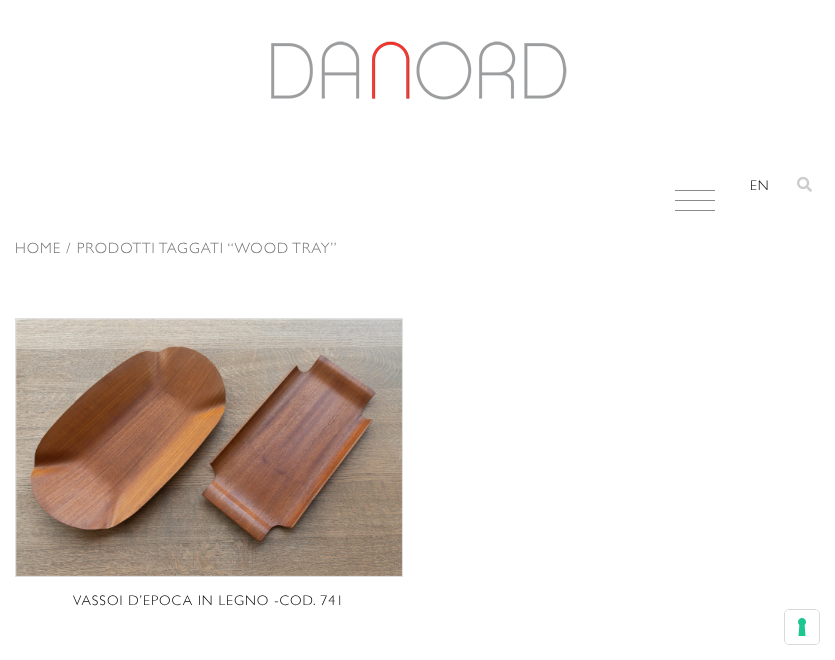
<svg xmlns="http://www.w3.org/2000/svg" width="835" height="660">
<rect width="100%" height="100%" fill="#fff"/>
<image x="271" y="41" width="296" height="59" href="media/1.png"/>
<text x="750" y="190" style="font-family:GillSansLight;font-size:14px;font-weight:300;letter-spacing:1px;fill:#020202">EN</text>
<image x="797" y="176" width="15" height="16" href="media/2.png"/>
<rect x="675" y="190" width="40" height="1" fill="#8a8a8a"/>
<rect x="675" y="200" width="40" height="1" fill="#8a8a8a"/>
<rect x="675" y="210" width="40" height="1" fill="#8a8a8a"/>
<text x="15" y="253" style="font-family:GillSansLight;font-size:15px;font-weight:300;letter-spacing:1px;fill:#767676">HOME / PRODOTTI TAGGATI “WOOD TRAY”</text>
<image x="16" y="319" width="386" height="257" href="media/3.png"/>
<rect x="15.5" y="318.5" width="387" height="258" fill="none" stroke="#dfdfdf"/>
<text x="73" y="605" style="font-family:GillSansLight;font-size:14px;font-weight:300;letter-spacing:1px;fill:#020202">VASSOI D’EPOCA IN LEGNO -COD. 741</text>
<rect x="784.5" y="609.5" width="35" height="35" rx="4.5" fill="none" stroke="#d9d9d9"/>
<rect x="785" y="610" width="34" height="34" rx="4" fill="#fff"/>
<image x="798" y="618" width="8" height="18" href="media/4.png"/>
</svg>
